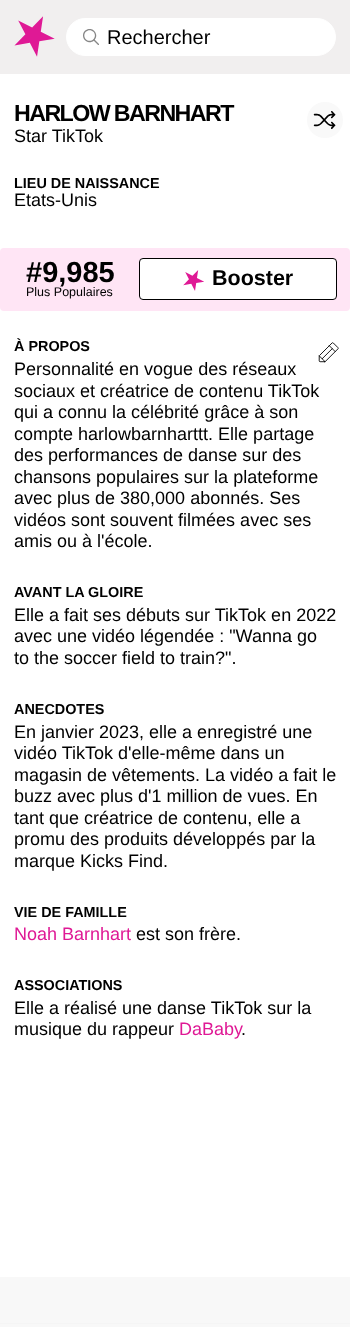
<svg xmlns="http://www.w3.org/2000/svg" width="350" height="1327">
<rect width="100%" height="100%" fill="#fff"/>
<rect y="1277" width="350" height="46" fill="#f8f8f8"/>
<rect width="350" height="74" fill="#f1efef"/>
<image x="14" y="16" width="41" height="41" href="media/1.png"/>
<rect x="66.5" y="18.5" width="269" height="37" rx="18.5" fill="#fff" stroke="#fff"/>
<image x="83" y="29" width="16" height="16" href="media/2.png"/>
<text x="107" y="44" style="font-family:Liberation Sans;font-size:20px;fill:#000">Rechercher</text>
<text x="14" y="121" style="font-family:Liberation Sans;font-size:23.25px;font-weight:bold;letter-spacing:-1.6px;fill:#000">HARLOW BARNHART</text>
<circle cx="325" cy="120" r="18" fill="#f9f9f9"/>
<image x="313" y="111" width="23" height="18" href="media/3.png"/>
<text x="14" y="142" style="font-family:Liberation Sans;font-size:18px;fill:#000">Star TikTok</text>
<text x="14" y="188" style="font-family:Liberation Sans;font-size:14.4px;font-weight:bold;fill:#000">LIEU DE NAISSANCE</text>
<text x="14" y="206" style="font-family:Liberation Sans;font-size:18px;fill:#000">Etats-Unis</text>
<rect y="248" width="350" height="63" rx="4" fill="#ffe5f5"/>
<text x="26" y="282" style="font-family:Liberation Sans;font-size:29px;font-weight:bold;fill:#000">#9,985</text>
<text x="26" y="296" style="font-family:Liberation Sans;font-size:12.5px;fill:#000">Plus Populaires</text>
<rect x="139.5" y="258.5" width="197" height="41" rx="3.5" fill="#fff" stroke="#000"/>
<image x="183" y="270" width="21" height="21" href="media/4.png"/>
<text x="212" y="285" style="font-family:Liberation Sans;font-size:21.5px;font-weight:bold;fill:#000">Booster</text>
<text x="14" y="351" style="font-family:Liberation Sans;font-size:14.4px;font-weight:bold;fill:#000">À PROPOS</text>
<image x="318" y="342" width="21" height="21" href="media/5.png"/>
<text x="14" y="375" style="font-family:Liberation Sans;font-size:18px;fill:#000">Personnalité en vogue des réseaux</text>
<text x="14" y="397" style="font-family:Liberation Sans;font-size:18px;fill:#000">sociaux et créatrice de contenu TikTok</text>
<text x="14" y="418" style="font-family:Liberation Sans;font-size:18px;fill:#000">qui a connu la célébrité grâce à son</text>
<text x="14" y="440" style="font-family:Liberation Sans;font-size:18px;fill:#000">compte harlowbarnharttt. Elle partage</text>
<text x="14" y="461" style="font-family:Liberation Sans;font-size:18px;fill:#000">des performances de danse sur des</text>
<text x="14" y="483" style="font-family:Liberation Sans;font-size:18px;fill:#000">chansons populaires sur la plateforme</text>
<text x="14" y="504" style="font-family:Liberation Sans;font-size:18px;fill:#000">avec plus de 380,000 abonnés. Ses</text>
<text x="14" y="526" style="font-family:Liberation Sans;font-size:18px;fill:#000">vidéos sont souvent filmées avec ses</text>
<text x="14" y="547" style="font-family:Liberation Sans;font-size:18px;fill:#000">amis ou à l'école.</text>
<text x="14" y="597" style="font-family:Liberation Sans;font-size:14.4px;font-weight:bold;fill:#000">AVANT LA GLOIRE</text>
<text x="14" y="621" style="font-family:Liberation Sans;font-size:18px;fill:#000">Elle a fait ses débuts sur TikTok en 2022</text>
<text x="14" y="642" style="font-family:Liberation Sans;font-size:18px;fill:#000">avec une vidéo légendée : "Wanna go</text>
<text x="14" y="664" style="font-family:Liberation Sans;font-size:18px;fill:#000">to the soccer field to train?".</text>
<text x="14" y="714" style="font-family:Liberation Sans;font-size:14.4px;font-weight:bold;fill:#000">ANECDOTES</text>
<text x="14" y="738" style="font-family:Liberation Sans;font-size:18px;fill:#000">En janvier 2023, elle a enregistré une</text>
<text x="14" y="759" style="font-family:Liberation Sans;font-size:18px;fill:#000">vidéo TikTok d'elle-même dans un</text>
<text x="14" y="781" style="font-family:Liberation Sans;font-size:18px;fill:#000">magasin de vêtements. La vidéo a fait le</text>
<text x="14" y="802" style="font-family:Liberation Sans;font-size:18px;fill:#000">buzz avec plus d'1 million de vues. En</text>
<text x="14" y="824" style="font-family:Liberation Sans;font-size:18px;fill:#000">tant que créatrice de contenu, elle a</text>
<text x="14" y="845" style="font-family:Liberation Sans;font-size:18px;fill:#000">promu des produits développés par la</text>
<text x="14" y="867" style="font-family:Liberation Sans;font-size:18px;fill:#000">marque Kicks Find.</text>
<text x="14" y="917" style="font-family:Liberation Sans;font-size:14.4px;font-weight:bold;fill:#000">VIE DE FAMILLE</text>
<text x="14" y="940" style="font-family:Liberation Sans;font-size:18px;fill:#df1995">Noah Barnhart</text>
<text x="136" y="940" style="font-family:Liberation Sans;font-size:18px;fill:#000">est son frère.</text>
<text x="14" y="990" style="font-family:Liberation Sans;font-size:14.4px;font-weight:bold;fill:#000">ASSOCIATIONS</text>
<text x="14" y="1014" style="font-family:Liberation Sans;font-size:18px;fill:#000">Elle a réalisé une danse TikTok sur la</text>
<text x="14" y="1035" style="font-family:Liberation Sans;font-size:18px;fill:#000">musique du rappeur</text>
<text x="179" y="1035" style="font-family:Liberation Sans;font-size:18px;fill:#df1995">DaBaby</text>
<text x="241" y="1035" style="font-family:Liberation Sans;font-size:18px;fill:#000">.</text>
<rect y="1324" width="350" height="3" fill="#f8f8f8"/>
<rect y="1323" width="350" height="1" fill="#f5f5f5"/>
</svg>
